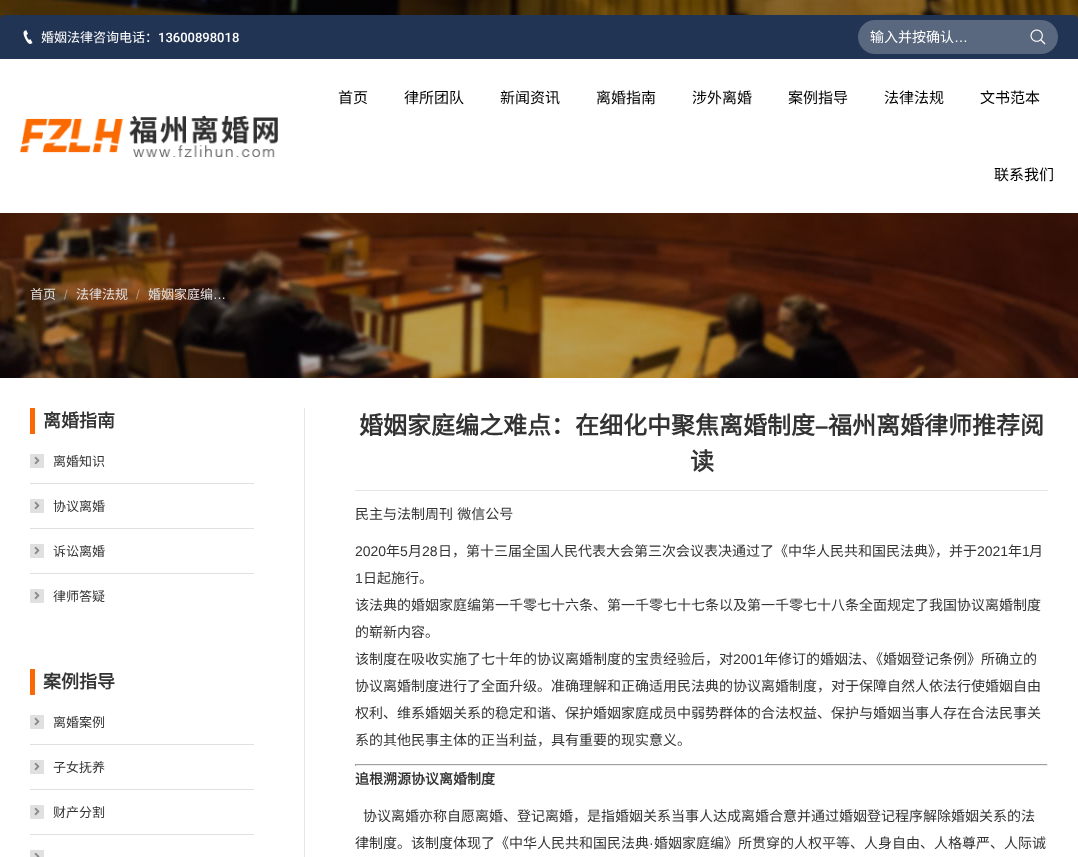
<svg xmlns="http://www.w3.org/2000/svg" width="1078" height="857">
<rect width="100%" height="100%" fill="#fff"/>
<image x="0" y="0" width="1078" height="378" href="media/4.png"/>
<path d="M5 15h1068c3 0 5 2 5 5v39h-1078v-39c0-3 2-5 5-5z" fill="#223454"/>
<rect y="15" width="1078" height="44" rx="5" fill="#223454"/>
<image x="23" y="30" width="10" height="14" href="media/1.png"/>
<text x="41" y="42" style="font-family:Noto Sans CJK SC;font-size:13px;fill:#fff">婚姻法律咨询电话：</text>
<text x="158" y="42" style="font-family:Roboto;font-size:13px;font-weight:500;fill:#fff">13600898018</text>
<rect x="858" y="20" width="200" height="34" rx="17" fill="#59677f"/>
<text x="870" y="42" style="font-family:Noto Sans CJK SC;font-size:14px;fill:#fff">输入并按确认</text>
<text x="954" y="42" style="font-family:Liberation Sans;font-size:14px;fill:#fff">…</text>
<image x="1030" y="29" width="16" height="16" href="media/2.png"/>
<rect y="59" width="1078" height="154" fill="#fff"/>
<image x="20" y="115" width="258" height="42" href="media/3.png"/>
<text x="338" y="103" style="font-family:Noto Sans CJK SC;font-size:15px;fill:#000">首页</text>
<text x="404" y="103" style="font-family:Noto Sans CJK SC;font-size:15px;fill:#000">律所团队</text>
<text x="500" y="103" style="font-family:Noto Sans CJK SC;font-size:15px;fill:#000">新闻资讯</text>
<text x="596" y="103" style="font-family:Noto Sans CJK SC;font-size:15px;fill:#000">离婚指南</text>
<text x="692" y="103" style="font-family:Noto Sans CJK SC;font-size:15px;fill:#000">涉外离婚</text>
<text x="788" y="103" style="font-family:Noto Sans CJK SC;font-size:15px;fill:#000">案例指导</text>
<text x="884" y="103" style="font-family:Noto Sans CJK SC;font-size:15px;fill:#000">法律法规</text>
<text x="980" y="103" style="font-family:Noto Sans CJK SC;font-size:15px;fill:#000">文书范本</text>
<text x="994" y="180" style="font-family:Noto Sans CJK SC;font-size:15px;fill:#000">联系我们</text>
<text x="30" y="299" style="font-family:Noto Sans CJK SC;font-size:13px;fill:#e0e0e0">首页</text>
<text x="64" y="299" style="font-family:Liberation Sans;font-size:13px;fill:#ac9884">/</text>
<text x="76" y="299" style="font-family:Noto Sans CJK SC;font-size:13px;fill:#e0e0e0">法律法规</text>
<text x="136" y="299" style="font-family:Liberation Sans;font-size:13px;fill:#b6977d">/</text>
<text x="148" y="299" style="font-family:Noto Sans CJK SC;font-size:13px;fill:#e0e0e0">婚姻家庭编</text>
<text x="213" y="299" style="font-family:Liberation Sans;font-size:13px;fill:#e0e0e0">…</text>
<rect x="304" y="408" width="1" height="449" fill="#e7e7e7"/>
<rect x="30" y="408" width="5" height="26" fill="#fb6907"/>
<text x="43" y="427" style="font-family:Noto Sans CJK SC;font-size:18px;font-weight:bold;fill:#333">离婚指南</text>
<rect x="30" y="454" width="14" height="14" rx="1" fill="#e0e0e0"/>
<text x="53" y="466" style="font-family:Noto Sans CJK SC;font-size:13px;fill:#333">离婚知识</text>
<image x="34" y="456" width="6" height="9" href="media/5.png"/>
<rect x="30" y="483" width="224" height="1" fill="#e0e0e0"/>
<rect x="30" y="499" width="14" height="14" rx="1" fill="#e0e0e0"/>
<text x="53" y="511" style="font-family:Noto Sans CJK SC;font-size:13px;fill:#333">协议离婚</text>
<image x="34" y="501" width="6" height="9" href="media/5.png"/>
<rect x="30" y="528" width="224" height="1" fill="#e0e0e0"/>
<rect x="30" y="544" width="14" height="14" rx="1" fill="#e0e0e0"/>
<text x="53" y="556" style="font-family:Noto Sans CJK SC;font-size:13px;fill:#333">诉讼离婚</text>
<image x="34" y="546" width="6" height="9" href="media/5.png"/>
<rect x="30" y="573" width="224" height="1" fill="#e0e0e0"/>
<rect x="30" y="589" width="14" height="14" rx="1" fill="#e0e0e0"/>
<text x="53" y="601" style="font-family:Noto Sans CJK SC;font-size:13px;fill:#333">律师答疑</text>
<image x="34" y="591" width="6" height="9" href="media/5.png"/>
<rect x="30" y="669" width="5" height="26" fill="#fb6907"/>
<text x="43" y="688" style="font-family:Noto Sans CJK SC;font-size:18px;font-weight:bold;fill:#333">案例指导</text>
<rect x="30" y="715" width="14" height="14" rx="1" fill="#e0e0e0"/>
<text x="53" y="727" style="font-family:Noto Sans CJK SC;font-size:13px;fill:#333">离婚案例</text>
<image x="34" y="717" width="6" height="9" href="media/5.png"/>
<rect x="30" y="744" width="224" height="1" fill="#e0e0e0"/>
<rect x="30" y="760" width="14" height="14" rx="1" fill="#e0e0e0"/>
<text x="53" y="772" style="font-family:Noto Sans CJK SC;font-size:13px;fill:#333">子女抚养</text>
<image x="34" y="762" width="6" height="9" href="media/5.png"/>
<rect x="30" y="789" width="224" height="1" fill="#e0e0e0"/>
<rect x="30" y="805" width="14" height="14" rx="1" fill="#e0e0e0"/>
<text x="53" y="817" style="font-family:Noto Sans CJK SC;font-size:13px;fill:#333">财产分割</text>
<image x="34" y="807" width="6" height="9" href="media/5.png"/>
<rect x="30" y="834" width="224" height="1" fill="#e0e0e0"/>
<rect x="30" y="850" width="14" height="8" rx="1" fill="#e0e0e0"/>
<image x="34" y="852" width="6" height="5" href="media/6.png"/>
<rect x="355" y="490" width="693" height="1" fill="#e5e5e5"/>
<text x="359" y="434" style="font-family:Noto Sans CJK SC;font-size:24px;font-weight:bold;fill:#333">婚姻家庭编之难点：在细化中聚焦离婚制度</text>
<text x="815" y="434" style="font-family:Liberation Sans;font-size:24px;font-weight:bold;fill:#333">–</text>
<text x="828" y="434" style="font-family:Noto Sans CJK SC;font-size:24px;font-weight:bold;fill:#333">福州离婚律师推荐阅</text>
<text x="690" y="470" style="font-family:Noto Sans CJK SC;font-size:24px;font-weight:bold;fill:#333">读</text>
<text x="355" y="519" word-spacing="1" style="font-family:Noto Sans CJK SC;font-size:14px;fill:#333">民主与法制周刊 微信公号</text>
<text x="355" y="556" style="font-family:Liberation Sans;font-size:14px;fill:#333">2020</text>
<text x="386" y="556" style="font-family:Noto Sans CJK SC;font-size:14px;fill:#333">年</text>
<text x="400" y="556" style="font-family:Liberation Sans;font-size:14px;fill:#333">5</text>
<text x="408" y="556" style="font-family:Noto Sans CJK SC;font-size:14px;fill:#333">月</text>
<text x="422" y="556" style="font-family:Liberation Sans;font-size:14px;fill:#333">28</text>
<text x="438" y="556" style="font-family:Noto Sans CJK SC;font-size:14px;fill:#333">日，第十三届全国人民代表大会第三次会议表决通过了《中华人民共和国民法典》，并于</text>
<text x="977" y="556" style="font-family:Liberation Sans;font-size:14px;fill:#333">2021</text>
<text x="1008" y="556" style="font-family:Noto Sans CJK SC;font-size:14px;fill:#333">年</text>
<text x="1022" y="556" style="font-family:Liberation Sans;font-size:14px;fill:#333">1</text>
<text x="1029" y="556" style="font-family:Noto Sans CJK SC;font-size:14px;fill:#333">月</text>
<text x="355" y="583" style="font-family:Liberation Sans;font-size:14px;fill:#333">1</text>
<text x="363" y="583" style="font-family:Noto Sans CJK SC;font-size:14px;fill:#333">日起施行。</text>
<text x="355" y="610" style="font-family:Noto Sans CJK SC;font-size:14px;fill:#333">该法典的婚姻家庭编第一千零七十六条、第一千零七十七条以及第一千零七十八条全面规定了我国协议离婚制度</text>
<text x="355" y="637" style="font-family:Noto Sans CJK SC;font-size:14px;fill:#333">的崭新内容。</text>
<text x="355" y="664" style="font-family:Noto Sans CJK SC;font-size:14px;fill:#333">该制度在吸收实施了七十年的协议离婚制度的宝贵经验后，对</text>
<text x="733" y="664" style="font-family:Liberation Sans;font-size:14px;fill:#333">2001</text>
<text x="764" y="664" style="font-family:Noto Sans CJK SC;font-size:14px;fill:#333">年修订的婚姻法、《婚姻登记条例》所确立的</text>
<text x="355" y="691" style="font-family:Noto Sans CJK SC;font-size:14px;fill:#333">协议离婚制度进行了全面升级。准确理解和正确适用民法典的协议离婚制度，对于保障自然人依法行使婚姻自由</text>
<text x="355" y="718" style="font-family:Noto Sans CJK SC;font-size:14px;fill:#333">权利、维系婚姻关系的稳定和谐、保护婚姻家庭成员中弱势群体的合法权益、保护与婚姻当事人存在合法民事关</text>
<text x="355" y="745" style="font-family:Noto Sans CJK SC;font-size:14px;fill:#333">系的其他民事主体的正当利益，具有重要的现实意义。</text>
<rect x="355" y="764" width="693" height="1" fill="#9f9f9f"/>
<rect x="1047" y="764" width="1" height="2" fill="#eee"/>
<rect x="355" y="765" width="693" height="1" fill="#eee"/>
<rect x="355" y="764" width="1" height="2" fill="#9f9f9f"/>
<text x="355" y="784" style="font-family:Noto Sans CJK SC;font-size:14px;font-weight:bold;fill:#333">追根溯源协议离婚制度</text>
<text x="363" y="821" style="font-family:Noto Sans CJK SC;font-size:14px;fill:#333">协议离婚亦称自愿离婚、登记离婚，是指婚姻关系当事人达成离婚合意并通过婚姻登记程序解除婚姻关系的法</text>
<text x="355" y="848" style="font-family:Noto Sans CJK SC;font-size:14px;fill:#333">律制度。该制度体现了《中华人民共和国民法典</text>
<text x="649" y="848" style="font-family:Liberation Sans;font-size:14px;fill:#333">·</text>
<text x="654" y="848" style="font-family:Noto Sans CJK SC;font-size:14px;fill:#333">婚姻家庭编》所贯穿的人权平等、人身自由、人格尊严、人际诚</text>
</svg>
